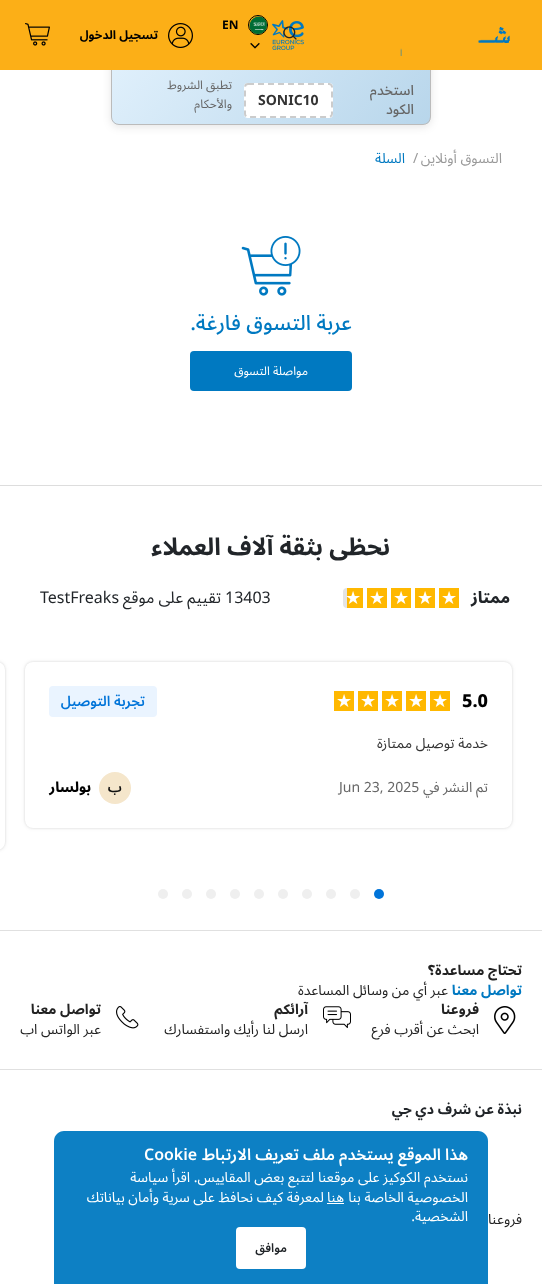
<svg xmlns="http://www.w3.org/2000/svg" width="542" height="1285">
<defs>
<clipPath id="clip1"><rect x="111" y="27" width="320" height="98" rx="8"/></clipPath>
<linearGradient id="g1" gradientUnits="userSpaceOnUse" x1="154" y1="-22" x2="388" y2="174"><stop offset="0" stop-color="#e3f2fd"/><stop offset="1" stop-color="#b8d6eb"/></linearGradient>
</defs>
<rect width="100%" height="100%" fill="#fff"/>
<rect x="111" y="29" width="320" height="98" rx="8" fill="#0000001a" filter="blur(4px)"/>
<g clip-path="url(#clip1)">
<rect x="112" y="70" width="318" height="54" fill="url(#g1)"/>
</g>
<rect x="111.5" y="27.5" width="319" height="97" rx="7.5" fill="none" stroke="#bbb"/>
<rect width="542" height="70" fill="#fcaf17"/>
<image x="272" y="20" width="32" height="30" href="media/1.png"/>
<circle cx="258" cy="25" r="9.5" fill="none" stroke="#000"/>
<image x="249" y="16" width="18" height="18" href="media/2.png"/>
<text x="222" y="29" style="font-family:Noto Sans Arabic;font-size:12px;font-weight:bold;fill:#000">EN</text>
<image x="250" y="42" width="10" height="7" href="media/3.png"/>
<image x="168" y="23" width="25" height="25" href="media/4.png"/>
<text x="158" y="39" style="font-family:Noto Sans Arabic;font-size:12px;font-weight:bold;direction:rtl;fill:#000">تسجيل الدخول</text>
<image x="25" y="23" width="25" height="23" href="media/5.png"/>
<image x="400" y="27" width="110" height="29" href="media/6.png"/>
<image x="283" y="26" width="14" height="14" href="media/7.png"/>
<text x="414" y="95" style="font-family:Noto Sans Arabic;font-size:14px;font-weight:500;direction:rtl;fill:#666">استخدم</text>
<text x="414" y="114" style="font-family:Noto Sans Arabic;font-size:14px;font-weight:500;direction:rtl;fill:#666">الكود</text>
<rect x="244" y="83" width="89" height="35" rx="4" fill="#fff"/>
<path d="M248 84h81c1.5 0 3 1.5 3 3v27c0 1.5-1.5 3-3 3h-81c-1.5 0-3-1.5-3-3v-27c0-1.5 1.5-3 3-3z" fill="none" stroke="#ccc" stroke-width="2" stroke-dasharray="6 4"/>
<text x="258" y="105" style="font-family:Noto Sans Arabic;font-size:14px;font-weight:bold;fill:#333">SONIC10</text>
<text x="232" y="89" style="font-family:Noto Sans Arabic;font-size:12px;direction:rtl;fill:#666">تطبق الشروط</text>
<text x="232" y="108" style="font-family:Noto Sans Arabic;font-size:12px;direction:rtl;fill:#666">والأحكام</text>
<text x="502" y="163" style="font-family:Noto Sans Arabic;font-size:14px;direction:rtl;fill:#999">التسوق أونلاين</text>
<text x="413" y="163" style="font-family:Noto Sans Arabic;font-size:14px;fill:#999">/</text>
<text x="405" y="163" style="font-family:Noto Sans Arabic;font-size:14px;direction:rtl;fill:#0079c1">السلة</text>
<image x="241" y="236" width="60" height="60" href="media/8.png"/>
<text x="352" y="330" style="font-family:Noto Sans Arabic;font-size:21px;font-weight:500;direction:rtl;fill:#0079c1">عربة التسوق فارغة.</text>
<rect x="190" y="351" width="162" height="40" rx="4" fill="#0079c1"/>
<text x="308" y="375" style="font-family:Noto Sans Arabic;font-size:12px;direction:rtl;fill:#fff">مواصلة التسوق</text>
<rect y="485" width="542" height="1" fill="#ddd"/>
<text x="390" y="555" style="font-family:Noto Sans Arabic;font-size:24px;font-weight:bold;direction:rtl;fill:#212529">نحظى بثقة آلاف العملاء</text>
<text x="510" y="603" style="font-family:Noto Sans Arabic;font-size:16px;font-weight:800;direction:rtl;fill:#212529">ممتاز</text>
<rect x="439" y="588" width="20" height="20" fill="#ffb800"/>
<text x="441" y="604" style="font-family:DejaVu Sans;font-size:18px;fill:#fff">★</text>
<rect x="415" y="588" width="20" height="20" fill="#ffb800"/>
<text x="417" y="604" style="font-family:DejaVu Sans;font-size:18px;fill:#fff">★</text>
<rect x="391" y="588" width="20" height="20" fill="#ffb800"/>
<text x="393" y="604" style="font-family:DejaVu Sans;font-size:18px;fill:#fff">★</text>
<rect x="367" y="588" width="20" height="20" fill="#ffb800"/>
<text x="369" y="604" style="font-family:DejaVu Sans;font-size:18px;fill:#fff">★</text>
<rect x="343" y="588" width="20" height="20" rx="4" fill="#e4e4e4"/>
<rect x="347" y="588" width="16" height="20" fill="#ffb800"/>
<text x="345" y="604" style="font-family:DejaVu Sans;font-size:18px;fill:#fff">★</text>
<text x="225" y="603" style="font-family:Noto Sans Arabic;font-size:16px;fill:#212529">13403</text>
<text x="221" y="603" style="font-family:Noto Sans Arabic;font-size:16px;direction:rtl;fill:#212529">تقييم على موقع</text>
<text x="40" y="603" style="font-family:Noto Sans Arabic;font-size:16px;fill:#212529">TestFreaks</text>
<rect x="25" y="662" width="487" height="166" rx="8" fill="#00000014" filter="blur(2px)"/>
<rect x="25" y="662" width="487" height="166" rx="8" fill="#0000001a" filter="blur(1px)"/>
<rect x="25" y="662" width="487" height="166" rx="8" fill="#fff"/>
<text x="462" y="707" style="font-family:Noto Sans Arabic;font-size:18px;font-weight:800;fill:#000">5.0</text>
<rect x="430" y="691" width="20" height="20" fill="#ffb800"/>
<text x="432" y="707" style="font-family:DejaVu Sans;font-size:18px;fill:#fff">★</text>
<rect x="406" y="691" width="20" height="20" fill="#ffb800"/>
<text x="408" y="707" style="font-family:DejaVu Sans;font-size:18px;fill:#fff">★</text>
<rect x="382" y="691" width="20" height="20" fill="#ffb800"/>
<text x="384" y="707" style="font-family:DejaVu Sans;font-size:18px;fill:#fff">★</text>
<rect x="358" y="691" width="20" height="20" fill="#ffb800"/>
<text x="360" y="707" style="font-family:DejaVu Sans;font-size:18px;fill:#fff">★</text>
<rect x="334" y="691" width="20" height="20" fill="#ffb800"/>
<text x="336" y="707" style="font-family:DejaVu Sans;font-size:18px;fill:#fff">★</text>
<rect x="49" y="686" width="108" height="31" rx="4" fill="#eaf4ff"/>
<text x="145" y="706" style="font-family:Noto Sans Arabic;font-size:14px;font-weight:600;direction:rtl;fill:#0074d9">تجربة التوصيل</text>
<text x="488" y="748" style="font-family:Noto Sans Arabic;font-size:14px;direction:rtl;fill:#333">خدمة توصيل ممتازة</text>
<text x="488" y="792" style="font-family:Noto Sans Arabic;font-size:14px;direction:rtl;fill:#666">تم النشر في</text>
<text x="339" y="792" style="font-family:Noto Sans Arabic;font-size:14px;fill:#666">Jun 23, 2025</text>
<circle cx="115" cy="788" r="16" fill="#f5e6cb"/>
<text x="122" y="792" style="font-family:Noto Sans Arabic;font-size:14px;font-weight:600;direction:rtl;fill:#111">ب</text>
<text x="91" y="792" style="font-family:Noto Sans Arabic;font-size:14px;font-weight:800;direction:rtl;fill:#000">بولسار</text>
<rect x="-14" y="662" width="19" height="188" rx="8" fill="#00000014" filter="blur(2px)"/>
<rect x="-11" y="662" width="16" height="188" rx="8" fill="#0000001a" filter="blur(1px)"/>
<path d="M0 662h-3c4.5 0 8 3.5 8 8v172c0 4.5-3.5 8-8 8h3z" fill="#fff"/>
<circle cx="379" cy="894" r="5" fill="#0074d9"/>
<circle cx="355" cy="894" r="5" fill="#efefef"/>
<circle cx="331" cy="894" r="5" fill="#efefef"/>
<circle cx="307" cy="894" r="5" fill="#efefef"/>
<circle cx="283" cy="894" r="5" fill="#efefef"/>
<circle cx="259" cy="894" r="5" fill="#efefef"/>
<circle cx="235" cy="894" r="5" fill="#efefef"/>
<circle cx="211" cy="894" r="5" fill="#efefef"/>
<circle cx="187" cy="894" r="5" fill="#efefef"/>
<circle cx="163" cy="894" r="5" fill="#efefef"/>
<rect y="930" width="542" height="1" fill="#e0e0e0"/>
<rect y="1069" width="542" height="1" fill="#e0e0e0"/>
<text x="522" y="975" style="font-family:Noto Sans Arabic;font-size:14px;font-weight:bold;direction:rtl;fill:#222">تحتاج مساعدة؟</text>
<text x="522" y="995" style="font-family:Noto Sans Arabic;font-size:14px;font-weight:bold;direction:rtl;fill:#0079c1">تواصل معنا</text>
<text x="448" y="995" style="font-family:Noto Sans Arabic;font-size:14px;direction:rtl;fill:#222">عبر أي من وسائل المساعدة</text>
<image x="494" y="1006" width="22" height="28" href="media/9.png"/>
<text x="479" y="1014" style="font-family:Noto Sans Arabic;font-size:14px;font-weight:bold;direction:rtl;fill:#222">فروعنا</text>
<text x="479" y="1034" style="font-family:Noto Sans Arabic;font-size:14px;direction:rtl;fill:#222">ابحث عن أقرب فرع</text>
<image x="323" y="1006" width="28" height="23" href="media/10.png"/>
<text x="308" y="1014" style="font-family:Noto Sans Arabic;font-size:14px;font-weight:bold;direction:rtl;fill:#222">آرائكم</text>
<text x="308" y="1034" style="font-family:Noto Sans Arabic;font-size:14px;direction:rtl;fill:#222">ارسل لنا رأيك واستفسارك</text>
<image x="116" y="1006" width="23" height="23" href="media/11.png"/>
<text x="101" y="1014" style="font-family:Noto Sans Arabic;font-size:14px;font-weight:bold;direction:rtl;fill:#222">تواصل معنا</text>
<text x="101" y="1034" style="font-family:Noto Sans Arabic;font-size:14px;direction:rtl;fill:#222">عبر الواتس اب</text>
<text x="522" y="1114" style="font-family:Noto Sans Arabic;font-size:14px;font-weight:bold;direction:rtl;fill:#212529">نبذة عن شرف دي جي</text>
<text x="522" y="1224" style="font-family:Noto Sans Arabic;font-size:14px;direction:rtl;fill:#222">فروعنا</text>
<path d="M64 1131h414c5.5 0 10 4.5 10 10v143h-434v-143c0-5.5 4.5-10 10-10z" fill="#0079c1f2"/>
<text x="468" y="1160" style="font-family:Noto Sans Arabic;font-size:16px;font-weight:600;direction:rtl;fill:#fff">هذا الموقع يستخدم ملف تعريف الارتباط</text>
<text x="144" y="1160" style="font-family:Noto Sans Arabic;font-size:16px;font-weight:600;fill:#fff">Cookie</text>
<text x="468" y="1182" style="font-family:Noto Sans Arabic;font-size:14px;direction:rtl;fill:#fff">نستخدم الكوكيز على موقعنا لتتبع بعض المقاييس. اقرأ سياسة</text>
<text x="468" y="1202" style="font-family:Noto Sans Arabic;font-size:14px;direction:rtl;fill:#fff">الخصوصية الخاصة بنا</text>
<text x="344" y="1202" style="font-family:Noto Sans Arabic;font-size:14px;direction:rtl;fill:#fff">هنا</text>
<rect x="327" y="1203" width="17" height="1" fill="#fff"/>
<text x="324" y="1202" style="font-family:Noto Sans Arabic;font-size:14px;direction:rtl;fill:#fff">لمعرفة كيف نحافظ على سرية وأمان بياناتك</text>
<text x="468" y="1221" style="font-family:Noto Sans Arabic;font-size:14px;direction:rtl;fill:#fff">الشخصية.</text>
<rect x="236" y="1227" width="70" height="42" rx="4" fill="#fff"/>
<text x="287" y="1252" style="font-family:Noto Sans Arabic;font-size:12px;font-weight:600;direction:rtl;fill:#212529">موافق</text>
</svg>
